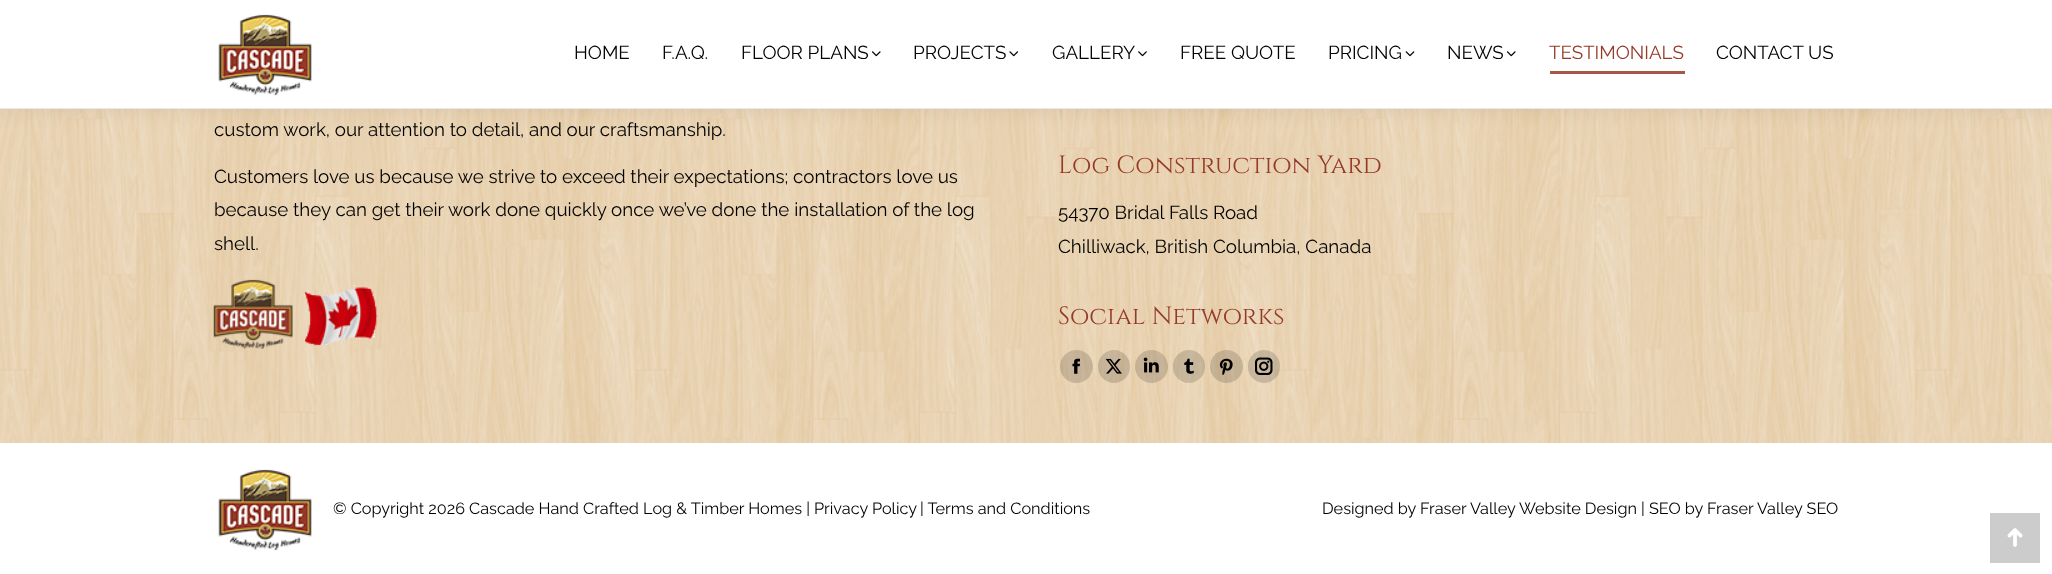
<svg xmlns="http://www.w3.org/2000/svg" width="2052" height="574">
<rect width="100%" height="100%" fill="#fff"/>
<image x="0" y="109" width="2052" height="334" href="media/6.png"/>
<rect x="-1" y="-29" width="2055" height="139" fill="#00000012" filter="blur(9.5px)"/>
<rect width="2052" height="108" fill="#fff"/>
<rect y="108" width="2052" height="1" fill="#e9e9e9"/>
<image x="218" y="14" width="94" height="82" href="media/1.png"/>
<text x="574" y="59" style="font-family:Raleway;font-size:18.75px;fill:#000">HOME</text>
<text x="662" y="59" style="font-family:Raleway;font-size:18.75px;fill:#000">F.A.Q.</text>
<text x="741" y="59" style="font-family:Raleway;font-size:18.75px;fill:#000">FLOOR PLANS</text>
<image x="871" y="51" width="10" height="6" href="media/2.png"/>
<text x="913" y="59" style="font-family:Raleway;font-size:18.75px;fill:#000">PROJECTS</text>
<image x="1009" y="51" width="10" height="6" href="media/3.png"/>
<text x="1052" y="59" style="font-family:Raleway;font-size:18.75px;fill:#000">GALLERY</text>
<image x="1138" y="51" width="9" height="6" href="media/4.png"/>
<text x="1180" y="59" style="font-family:Raleway;font-size:18.75px;fill:#000">FREE QUOTE</text>
<text x="1328" y="59" style="font-family:Raleway;font-size:18.75px;fill:#000">PRICING</text>
<image x="1405" y="51" width="10" height="6" href="media/5.png"/>
<text x="1447" y="59" style="font-family:Raleway;font-size:18.75px;fill:#000">NEWS</text>
<image x="1506" y="51" width="10" height="6" href="media/2.png"/>
<text x="1549" y="59" style="font-family:Raleway;font-size:18.75px;fill:#953a28">TESTIMONIALS</text>
<rect x="1550" y="71" width="135" height="3" fill="#a55848"/>
<text x="1716" y="59" style="font-family:Raleway;font-size:18.75px;fill:#000">CONTACT US</text>
<text x="214" y="136" style="font-family:Raleway;font-size:18.75px;fill:#000">custom work, our attention to detail, and our craftsmanship.</text>
<text x="214" y="183" style="font-family:Raleway;font-size:18.75px;fill:#000">Customers love us because we strive to exceed their expectations; contractors love us</text>
<text x="214" y="216" style="font-family:Raleway;font-size:18.75px;fill:#000">because they can get their work done quickly once we’ve done the installation of the log</text>
<text x="214" y="250" style="font-family:Raleway;font-size:18.75px;fill:#000">shell.</text>
<image x="213" y="279" width="165" height="70" href="media/7.png"/>
<text x="1058" y="173" style="font-family:Cinzel;font-size:25px;fill:#953a28">Log Construction Yard</text>
<text x="1058" y="219" style="font-family:Raleway;font-size:18.75px;fill:#000">54370 Bridal Falls Road</text>
<text x="1058" y="253" style="font-family:Raleway;font-size:18.75px;fill:#000">Chilliwack, British Columbia, Canada</text>
<text x="1058" y="324" style="font-family:Cinzel;font-size:25px;fill:#953a28">Social Networks</text>
<circle cx="1076.5" cy="366.5" r="16.5" fill="#00000026"/>
<image x="1072" y="358" width="8" height="16" href="media/8.png"/>
<rect x="1098" y="350" width="32" height="33" rx="16" fill="#00000026"/>
<image x="1105" y="358" width="17" height="16" href="media/9.png"/>
<circle cx="1151.5" cy="366.5" r="16.5" fill="#00000026"/>
<image x="1143" y="357" width="16" height="16" href="media/10.png"/>
<rect x="1173" y="350" width="32" height="33" rx="16" fill="#00000026"/>
<image x="1184" y="358" width="10" height="16" href="media/11.png"/>
<circle cx="1226.5" cy="366.5" r="16.5" fill="#00000026"/>
<image x="1219" y="358" width="14" height="17" href="media/12.png"/>
<rect x="1248" y="350" width="32" height="33" rx="16" fill="#00000026"/>
<image x="1255" y="357" width="18" height="18" href="media/13.png"/>
<image x="218" y="469" width="94" height="82" href="media/1.png"/>
<text x="333" y="514" style="font-family:Raleway;font-size:16.25px;fill:#000">© Copyright 2026 Cascade Hand Crafted Log &amp; Timber Homes |</text>
<text x="814" y="514" style="font-family:Raleway;font-size:16.25px;fill:#000">Privacy Policy</text>
<text x="920" y="514" style="font-family:Raleway;font-size:16.25px;fill:#000">| Terms and Conditions</text>
<text x="1322" y="514" style="font-family:Raleway;font-size:16.25px;fill:#000">Designed by Fraser Valley Website Design | SEO by Fraser Valley SEO</text>
<rect x="1990" y="513" width="50" height="50" fill="#ccc"/>
<image x="2007" y="528" width="16" height="19" href="media/14.png"/>
</svg>
